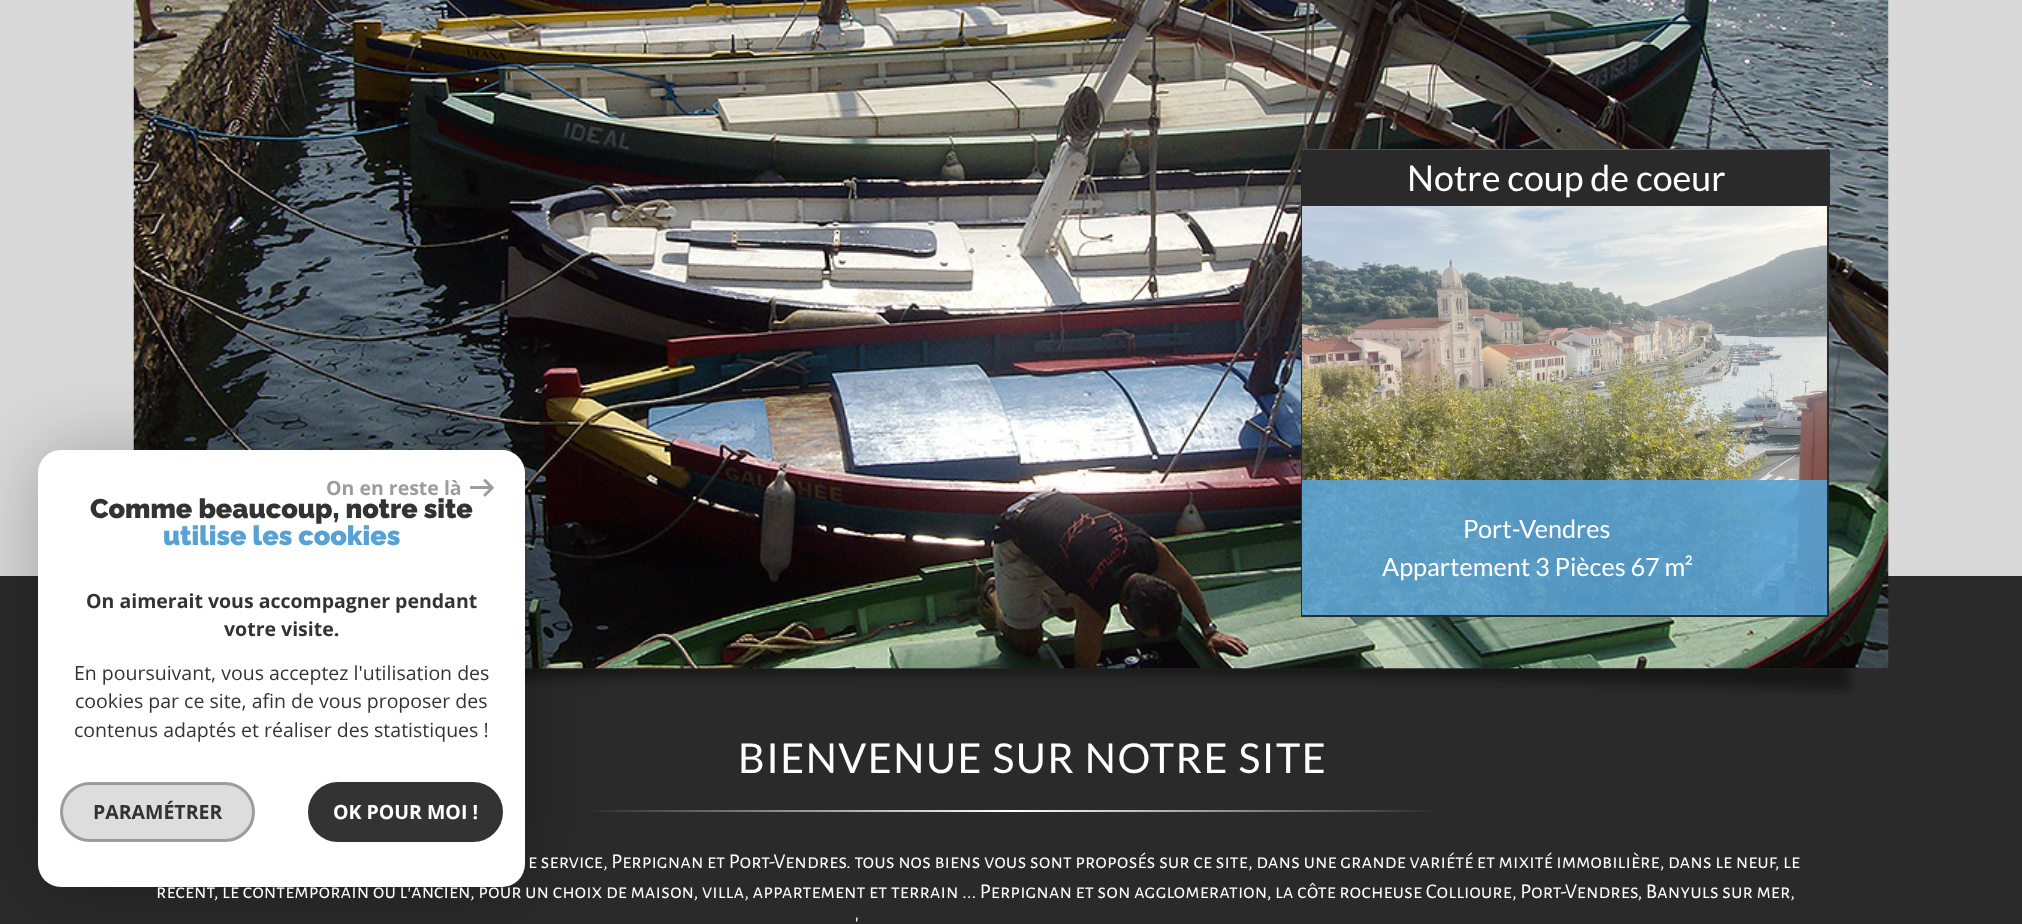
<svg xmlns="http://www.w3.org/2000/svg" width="2022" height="924">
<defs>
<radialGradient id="g1" gradientUnits="userSpaceOnUse" cx="1011" cy="811" r="428"><stop offset="0" stop-color="#fff"/><stop offset="1" stop-color="#2a2a2a"/></radialGradient>
<clipPath id="clip1"><rect x="470" y="479" width="24" height="18"/></clipPath>
</defs>
<rect width="100%" height="100%" fill="#d9d9d9"/>
<rect y="576" width="2022" height="348" fill="#2a2a2a"/>
<image x="525" y="668" width="1330" height="27" href="media/2.png"/>
<image x="133" y="0" width="1756" height="669" href="media/1.png"/>
<rect x="1302" y="150" width="526" height="466" fill="none" stroke="#2a2a2a" stroke-width="2"/>
<image x="1302" y="149" width="525" height="466" href="media/3.png"/>
<rect x="1302" y="150" width="528" height="56" fill="#2a2a2a"/>
<text x="1407" y="191" style="font-family:Lato;font-size:35.75px;fill:#fff">Notre coup de coeur</text>
<rect x="1302" y="480" width="525" height="135" fill="#59a2d4e6"/>
<text x="1463" y="538" style="font-family:Lato;font-size:25.25px;fill:#fff">Port-Vendres</text>
<text x="1382" y="576" style="font-family:Lato;font-size:25.25px;fill:#fff">Appartement 3 Pièces 67 m²</text>
<rect x="584" y="810" width="855" height="2" fill="url(#g1)"/>
<rect x="38" y="450" width="487" height="437" rx="23" fill="#00000040" filter="blur(37.5px)"/>
<rect x="38" y="450" width="487" height="437" rx="23" fill="#fff"/>
<text x="326" y="495" style="font-family:Open Sans;font-size:19.5px;font-weight:bold;fill:#9c9c9c">On en reste là</text>
<g clip-path="url(#clip1)">
<path d="M471 487.5h21" fill="none" stroke="#9c9c9c" stroke-width="3" stroke-linecap="round"/>
</g>
<path d="M485 480.5l7 7m-7 7.5l7-7" fill="none" stroke="#9c9c9c" stroke-width="3" stroke-linecap="round"/>
<text x="90" y="518" style="font-family:Raleway;font-size:27px;font-weight:100;fill:#333">Comme beaucoup, notre site</text>
<text x="163" y="545" style="font-family:Raleway;font-size:27px;font-weight:100;fill:#56a2d4">utilise les cookies</text>
<text x="86" y="608" style="font-family:Open Sans;font-size:19.5px;font-weight:bold;fill:#333">On aimerait vous accompagner pendant</text>
<text x="224" y="636" style="font-family:Open Sans;font-size:19.5px;font-weight:bold;fill:#333">votre visite.</text>
<text x="74" y="680" style="font-family:Open Sans;font-size:19.5px;fill:#333">En poursuivant, vous acceptez l'utilisation des</text>
<text x="75" y="708" style="font-family:Open Sans;font-size:19.5px;fill:#333">cookies par ce site, afin de vous proposer des</text>
<text x="74" y="737" style="font-family:Open Sans;font-size:19.5px;fill:#333">contenus adaptés et réaliser des statistiques !</text>
<rect x="61.5" y="783.5" width="192" height="57" rx="28.5" fill="#ddd" stroke="#9c9c9c" stroke-width="3"/>
<text x="93" y="819" style="font-family:Open Sans;font-size:19.5px;font-weight:bold;fill:#333">PARAMÉTRER</text>
<rect x="309.5" y="783.5" width="192" height="57" rx="28.5" fill="#333" stroke="#333" stroke-width="3"/>
<text x="333" y="819" style="font-family:Open Sans;font-size:19.5px;font-weight:bold;fill:#fff">OK POUR MOI !</text>
<text x="738" y="773" style="font-family:Lato;font-size:41.2px;letter-spacing:1.5px;fill:#fff">BIENVENUE SUR NOTRE SITE</text>
<text x="528" y="868" style="font-family:Alegreya Sans SC;font-size:21px;fill:#fff">e service, Perpignan et Port-Vendres. tous nos biens vous sont proposés sur ce site, dans une grande variété et mixité immobilière, dans le neuf, le</text>
<text x="156" y="898" style="font-family:Alegreya Sans SC;font-size:21px;fill:#fff">récent, le contemporain ou l'ancien, pour un choix de maison, villa, appartement et terrain ... Perpignan et son agglomeration, la côte rocheuse Collioure, Port-Vendres, Banyuls sur mer,</text>
<text x="855" y="928" style="font-family:Alegreya Sans SC;font-size:21px;fill:#fff">'</text>
</svg>
